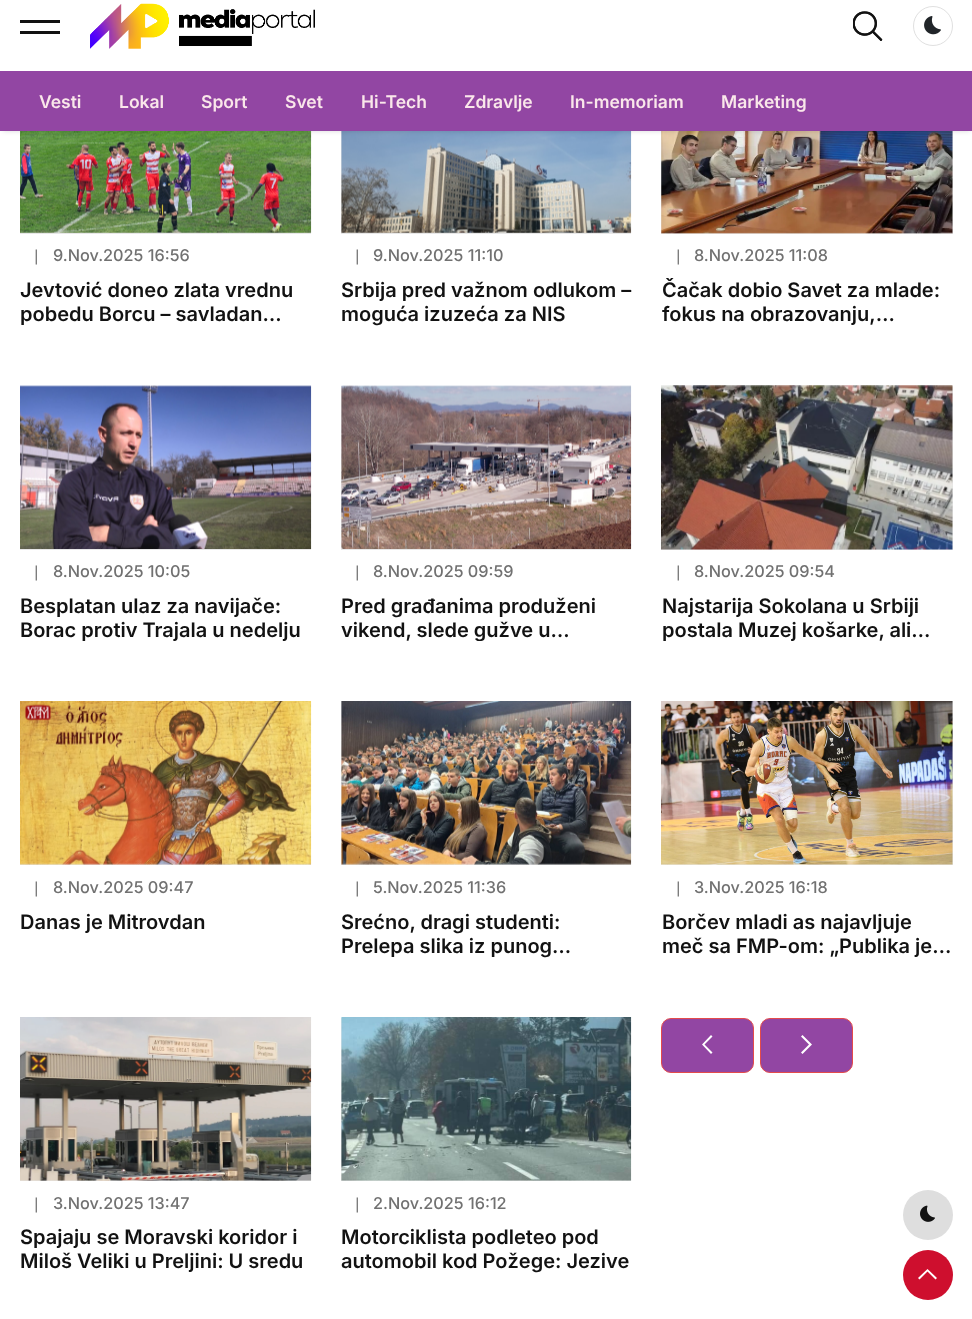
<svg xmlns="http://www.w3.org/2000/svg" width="972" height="1319">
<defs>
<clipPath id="clip1"><rect x="341" y="594" width="290" height="47"/></clipPath>
</defs>
<rect width="100%" height="100%" fill="#fff"/>
<rect x="20" y="232" width="291" height="2" fill="#e7e7e7"/>
<image x="20" y="131" width="292" height="102" href="media/4.png"/>
<rect x="341" y="131" width="290" height="103" fill="#e7e7e7"/>
<image x="341" y="131" width="291" height="102" href="media/5.png"/>
<rect x="661" y="131" width="292" height="103" fill="#e7e7e7"/>
<image x="661" y="131" width="292" height="103" href="media/6.png"/>
<rect x="3" y="-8" width="967" height="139" fill="#00000026" filter="blur(2.5px)"/>
<rect width="972" height="71" fill="#fff"/>
<rect x="20" y="20" width="40" height="3" fill="#121212"/>
<rect x="20" y="31" width="40" height="3" fill="#121212"/>
<image x="90" y="3" width="225" height="46" href="media/1.png"/>
<image x="853" y="11" width="30" height="30" href="media/2.png"/>
<circle cx="933" cy="26" r="19.5" fill="none" stroke="#e0e0e0"/>
<image x="924" y="16" width="17" height="19" href="media/3.png"/>
<rect y="71" width="972" height="60" fill="#9246a3"/>
<text x="39" y="108" style="font-family:Inter;font-size:17.5px;font-weight:600;fill:#fae7ea">Vesti</text>
<text x="119" y="108" style="font-family:Inter;font-size:17.5px;font-weight:600;fill:#fae7ea">Lokal</text>
<text x="201" y="108" style="font-family:Inter;font-size:17.5px;font-weight:600;fill:#fae7ea">Sport</text>
<text x="285" y="108" style="font-family:Inter;font-size:17.5px;font-weight:600;fill:#fae7ea">Svet</text>
<text x="361" y="108" style="font-family:Inter;font-size:17.5px;font-weight:600;fill:#fae7ea">Hi-Tech</text>
<text x="464" y="108" style="font-family:Inter;font-size:17.5px;font-weight:600;fill:#fae7ea">Zdravlje</text>
<text x="570" y="108" style="font-family:Inter;font-size:17.5px;font-weight:600;fill:#fae7ea">In-memoriam</text>
<text x="721" y="108" style="font-family:Inter;font-size:17.5px;font-weight:600;fill:#fae7ea">Marketing</text>
<text x="30" y="261" style="font-family:DejaVu Sans;font-size:15px;fill:#717171">❘</text>
<text x="53" y="261" style="font-family:Inter;font-size:16.25px;font-weight:500;fill:#717171">9.Nov.2025 16:56</text>
<text x="20" y="297" style="font-family:Inter;font-size:20px;font-weight:600;fill:#121212">Jevtović doneo zlata vrednu</text>
<text x="20" y="321" style="font-family:Inter;font-size:20px;font-weight:600;fill:#121212">pobedu Borcu – savladan…</text>
<text x="351" y="261" style="font-family:DejaVu Sans;font-size:15px;fill:#717171">❘</text>
<text x="373" y="261" style="font-family:Inter;font-size:16.25px;font-weight:500;fill:#717171">9.Nov.2025 11:10</text>
<text x="341" y="297" style="font-family:Inter;font-size:20px;font-weight:600;fill:#121212">Srbija pred važnom odlukom –</text>
<text x="341" y="321" style="font-family:Inter;font-size:20px;font-weight:600;fill:#121212">moguća izuzeća za NIS</text>
<text x="672" y="261" style="font-family:DejaVu Sans;font-size:15px;fill:#717171">❘</text>
<text x="694" y="261" style="font-family:Inter;font-size:16.25px;font-weight:500;fill:#717171">8.Nov.2025 11:08</text>
<text x="662" y="297" style="font-family:Inter;font-size:20px;font-weight:600;fill:#121212">Čačak dobio Savet za mlade:</text>
<text x="662" y="321" style="font-family:Inter;font-size:20px;font-weight:600;fill:#121212">fokus na obrazovanju,…</text>
<rect x="20" y="386" width="291" height="164" fill="#e7e7e7"/>
<image x="20" y="385" width="292" height="164" href="media/7.png"/>
<text x="30" y="577" style="font-family:DejaVu Sans;font-size:15px;fill:#717171">❘</text>
<text x="53" y="577" style="font-family:Inter;font-size:16.25px;font-weight:500;fill:#717171">8.Nov.2025 10:05</text>
<text x="20" y="613" style="font-family:Inter;font-size:20px;font-weight:600;fill:#121212">Besplatan ulaz za navijače:</text>
<text x="20" y="637" style="font-family:Inter;font-size:20px;font-weight:600;fill:#121212">Borac protiv Trajala u nedelju</text>
<rect x="341" y="386" width="290" height="164" fill="#e7e7e7"/>
<image x="341" y="385" width="291" height="164" href="media/8.png"/>
<text x="351" y="577" style="font-family:DejaVu Sans;font-size:15px;fill:#717171">❘</text>
<text x="373" y="577" style="font-family:Inter;font-size:16.25px;font-weight:500;fill:#717171">8.Nov.2025 09:59</text>
<text x="341" y="613" style="font-family:Inter;font-size:20px;font-weight:600;fill:#121212">Pred građanima produženi</text>
<g clip-path="url(#clip1)">
<text x="341" y="637" style="font-family:Inter;font-size:20px;font-weight:600;fill:#121212">vikend, slede gužve u…</text>
</g>
<rect x="661" y="386" width="292" height="164" fill="#e7e7e7"/>
<image x="661" y="385" width="292" height="165" href="media/9.png"/>
<text x="672" y="577" style="font-family:DejaVu Sans;font-size:15px;fill:#717171">❘</text>
<text x="694" y="577" style="font-family:Inter;font-size:16.25px;font-weight:500;fill:#717171">8.Nov.2025 09:54</text>
<text x="662" y="613" style="font-family:Inter;font-size:20px;font-weight:600;fill:#121212">Najstarija Sokolana u Srbiji</text>
<text x="662" y="637" style="font-family:Inter;font-size:20px;font-weight:600;fill:#121212">postala Muzej košarke, ali…</text>
<rect x="20" y="863" width="291" height="2" fill="#e7e7e7"/>
<image x="20" y="701" width="292" height="164" href="media/10.png"/>
<text x="30" y="893" style="font-family:DejaVu Sans;font-size:15px;fill:#717171">❘</text>
<text x="53" y="893" style="font-family:Inter;font-size:16.25px;font-weight:500;fill:#717171">8.Nov.2025 09:47</text>
<text x="20" y="929" style="font-family:Inter;font-size:20px;font-weight:600;fill:#121212">Danas je Mitrovdan</text>
<rect x="341" y="701" width="290" height="164" fill="#e7e7e7"/>
<image x="341" y="701" width="291" height="164" href="media/11.png"/>
<text x="351" y="893" style="font-family:DejaVu Sans;font-size:15px;fill:#717171">❘</text>
<text x="373" y="893" style="font-family:Inter;font-size:16.25px;font-weight:500;fill:#717171">5.Nov.2025 11:36</text>
<text x="341" y="929" style="font-family:Inter;font-size:20px;font-weight:600;fill:#121212">Srećno, dragi studenti:</text>
<text x="341" y="953" style="font-family:Inter;font-size:20px;font-weight:600;fill:#121212">Prelepa slika iz punog…</text>
<rect x="661" y="701" width="292" height="164" fill="#e7e7e7"/>
<image x="661" y="701" width="292" height="164" href="media/12.png"/>
<text x="672" y="893" style="font-family:DejaVu Sans;font-size:15px;fill:#717171">❘</text>
<text x="694" y="893" style="font-family:Inter;font-size:16.25px;font-weight:500;fill:#717171">3.Nov.2025 16:18</text>
<text x="662" y="929" style="font-family:Inter;font-size:20px;font-weight:600;fill:#121212">Borčev mladi as najavljuje</text>
<text x="662" y="953" style="font-family:Inter;font-size:20px;font-weight:600;fill:#121212">meč sa FMP-om: „Publika je…</text>
<rect x="661.5" y="1018.5" width="92" height="54" rx="9.5" fill="#9246a3" stroke="#e44b4b"/>
<path d="M702 1044.5l9-9.5l1.5 1.5l-8 8l8 8l-1.5 1.5z" fill="#fff"/>
<rect x="760.5" y="1018.5" width="92" height="54" rx="9.5" fill="#9246a3" stroke="#e44b4b"/>
<path d="M812 1044.5l-9.5 9.5l-1.5-1.5l8-8l-8-8l1.5-1.5z" fill="#fff"/>
<rect x="20" y="1180" width="291" height="1" fill="#e7e7e7"/>
<image x="20" y="1017" width="292" height="164" href="media/13.png"/>
<text x="30" y="1209" style="font-family:DejaVu Sans;font-size:15px;fill:#717171">❘</text>
<text x="53" y="1209" style="font-family:Inter;font-size:16.25px;font-weight:500;fill:#717171">3.Nov.2025 13:47</text>
<text x="20" y="1244" style="font-family:Inter;font-size:20px;font-weight:600;fill:#121212">Spajaju se Moravski koridor i</text>
<text x="20" y="1268" style="font-family:Inter;font-size:20px;font-weight:600;fill:#121212">Miloš Veliki u Preljini: U sredu</text>
<rect x="341" y="1018" width="290" height="163" fill="#e7e7e7"/>
<image x="341" y="1017" width="291" height="164" href="media/14.png"/>
<text x="351" y="1209" style="font-family:DejaVu Sans;font-size:15px;fill:#717171">❘</text>
<text x="373" y="1209" style="font-family:Inter;font-size:16.25px;font-weight:500;fill:#717171">2.Nov.2025 16:12</text>
<text x="341" y="1244" style="font-family:Inter;font-size:20px;font-weight:600;fill:#121212">Motorciklista podleteo pod</text>
<text x="341" y="1268" style="font-family:Inter;font-size:20px;font-weight:600;fill:#121212">automobil kod Požege: Jezive</text>
<circle cx="928" cy="1215" r="25" fill="#dedede"/>
<image x="920" y="1205" width="15" height="17" href="media/15.png"/>
<circle cx="928" cy="1275" r="25" fill="#ce0f2e"/>
<path d="M927.5 1269l9.5 9l-1.5 1.5l-8-8l-8 8l-1.5-1.5z" fill="#fff"/>
</svg>
